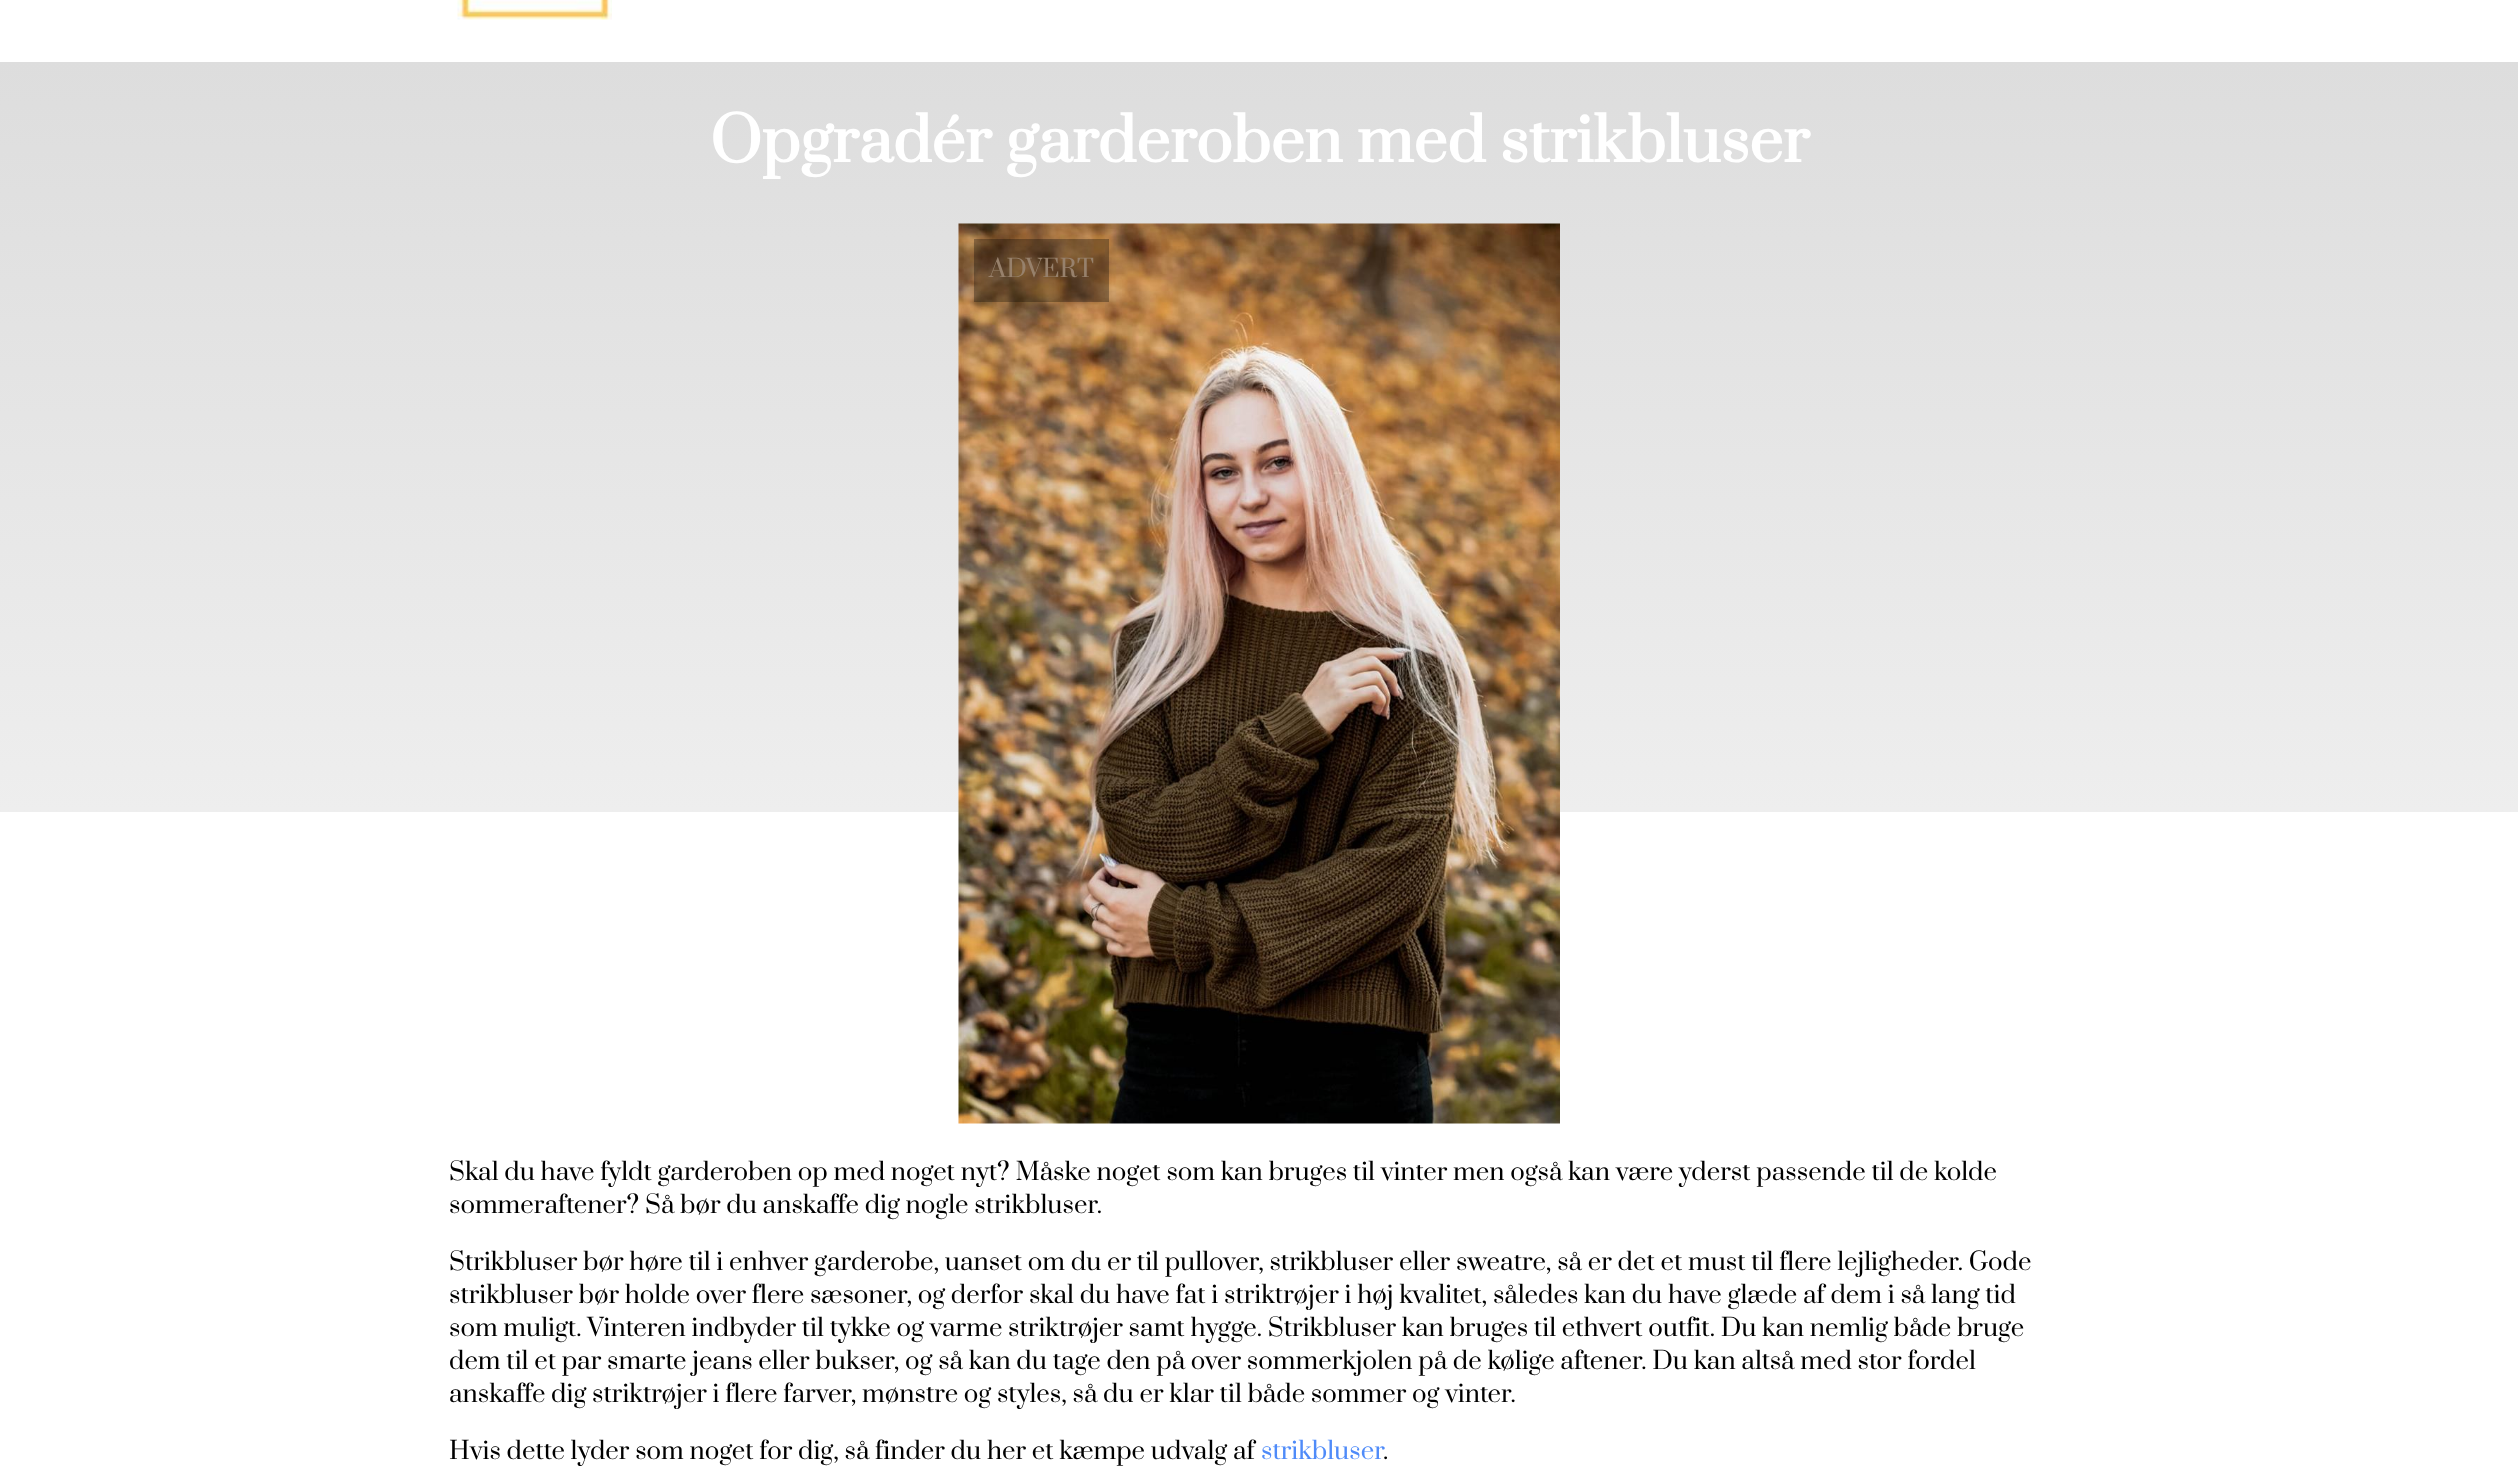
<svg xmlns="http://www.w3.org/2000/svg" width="2518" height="1470">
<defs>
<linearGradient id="g1" gradientUnits="userSpaceOnUse" x1="1259" y1="61" x2="1259" y2="812"><stop offset="0" stop-color="#ddd"/><stop offset="1" stop-color="#eee"/></linearGradient>
</defs>
<rect width="100%" height="100%" fill="#fff"/>
<image x="457" y="0" width="155" height="20" href="media/1.png"/>
<rect y="62" width="2518" height="750" fill="url(#g1)"/>
<text x="710" y="162" style="font-family:Prata;font-size:60px;font-weight:bold;fill:#fff">Opgradér garderoben med strikbluser</text>
<image x="958" y="223" width="602" height="901" href="media/2.png"/>
<rect x="974" y="239" width="135" height="63" fill="#0000004d"/>
<text x="989" y="277" style="font-family:Prata;font-size:24px;fill:#97816c">ADVERT</text>
<text x="449" y="1180" style="font-family:Prata;font-size:24px;fill:#000">Skal du have fyldt garderoben op med noget nyt? Måske noget som kan bruges til vinter men også kan være yderst passende til de kolde</text>
<text x="449" y="1213" style="font-family:Prata;font-size:24px;fill:#000">sommeraftener? Så bør du anskaffe dig nogle strikbluser.</text>
<text x="449" y="1270" style="font-family:Prata;font-size:24px;fill:#000">Strikbluser bør høre til i enhver garderobe, uanset om du er til pullover, strikbluser eller sweatre, så er det et must til flere lejligheder. Gode</text>
<text x="449" y="1303" style="font-family:Prata;font-size:24px;fill:#000">strikbluser bør holde over flere sæsoner, og derfor skal du have fat i striktrøjer i høj kvalitet, således kan du have glæde af dem i så lang tid</text>
<text x="449" y="1336" style="font-family:Prata;font-size:24px;fill:#000">som muligt. Vinteren indbyder til tykke og varme striktrøjer samt hygge. Strikbluser kan bruges til ethvert outfit. Du kan nemlig både bruge</text>
<text x="449" y="1369" style="font-family:Prata;font-size:24px;fill:#000">dem til et par smarte jeans eller bukser, og så kan du tage den på over sommerkjolen på de kølige aftener. Du kan altså med stor fordel</text>
<text x="449" y="1402" style="font-family:Prata;font-size:24px;fill:#000">anskaffe dig striktrøjer i flere farver, mønstre og styles, så du er klar til både sommer og vinter.</text>
<text x="449" y="1459" style="font-family:Prata;font-size:24px;fill:#000">Hvis dette lyder som noget for dig, så finder du her et kæmpe udvalg af</text>
<text x="1261" y="1459" style="font-family:Prata;font-size:24px;fill:#4f8bf9">strikbluser</text>
<text x="1383" y="1459" style="font-family:Prata;font-size:24px;fill:#000">.</text>
</svg>
